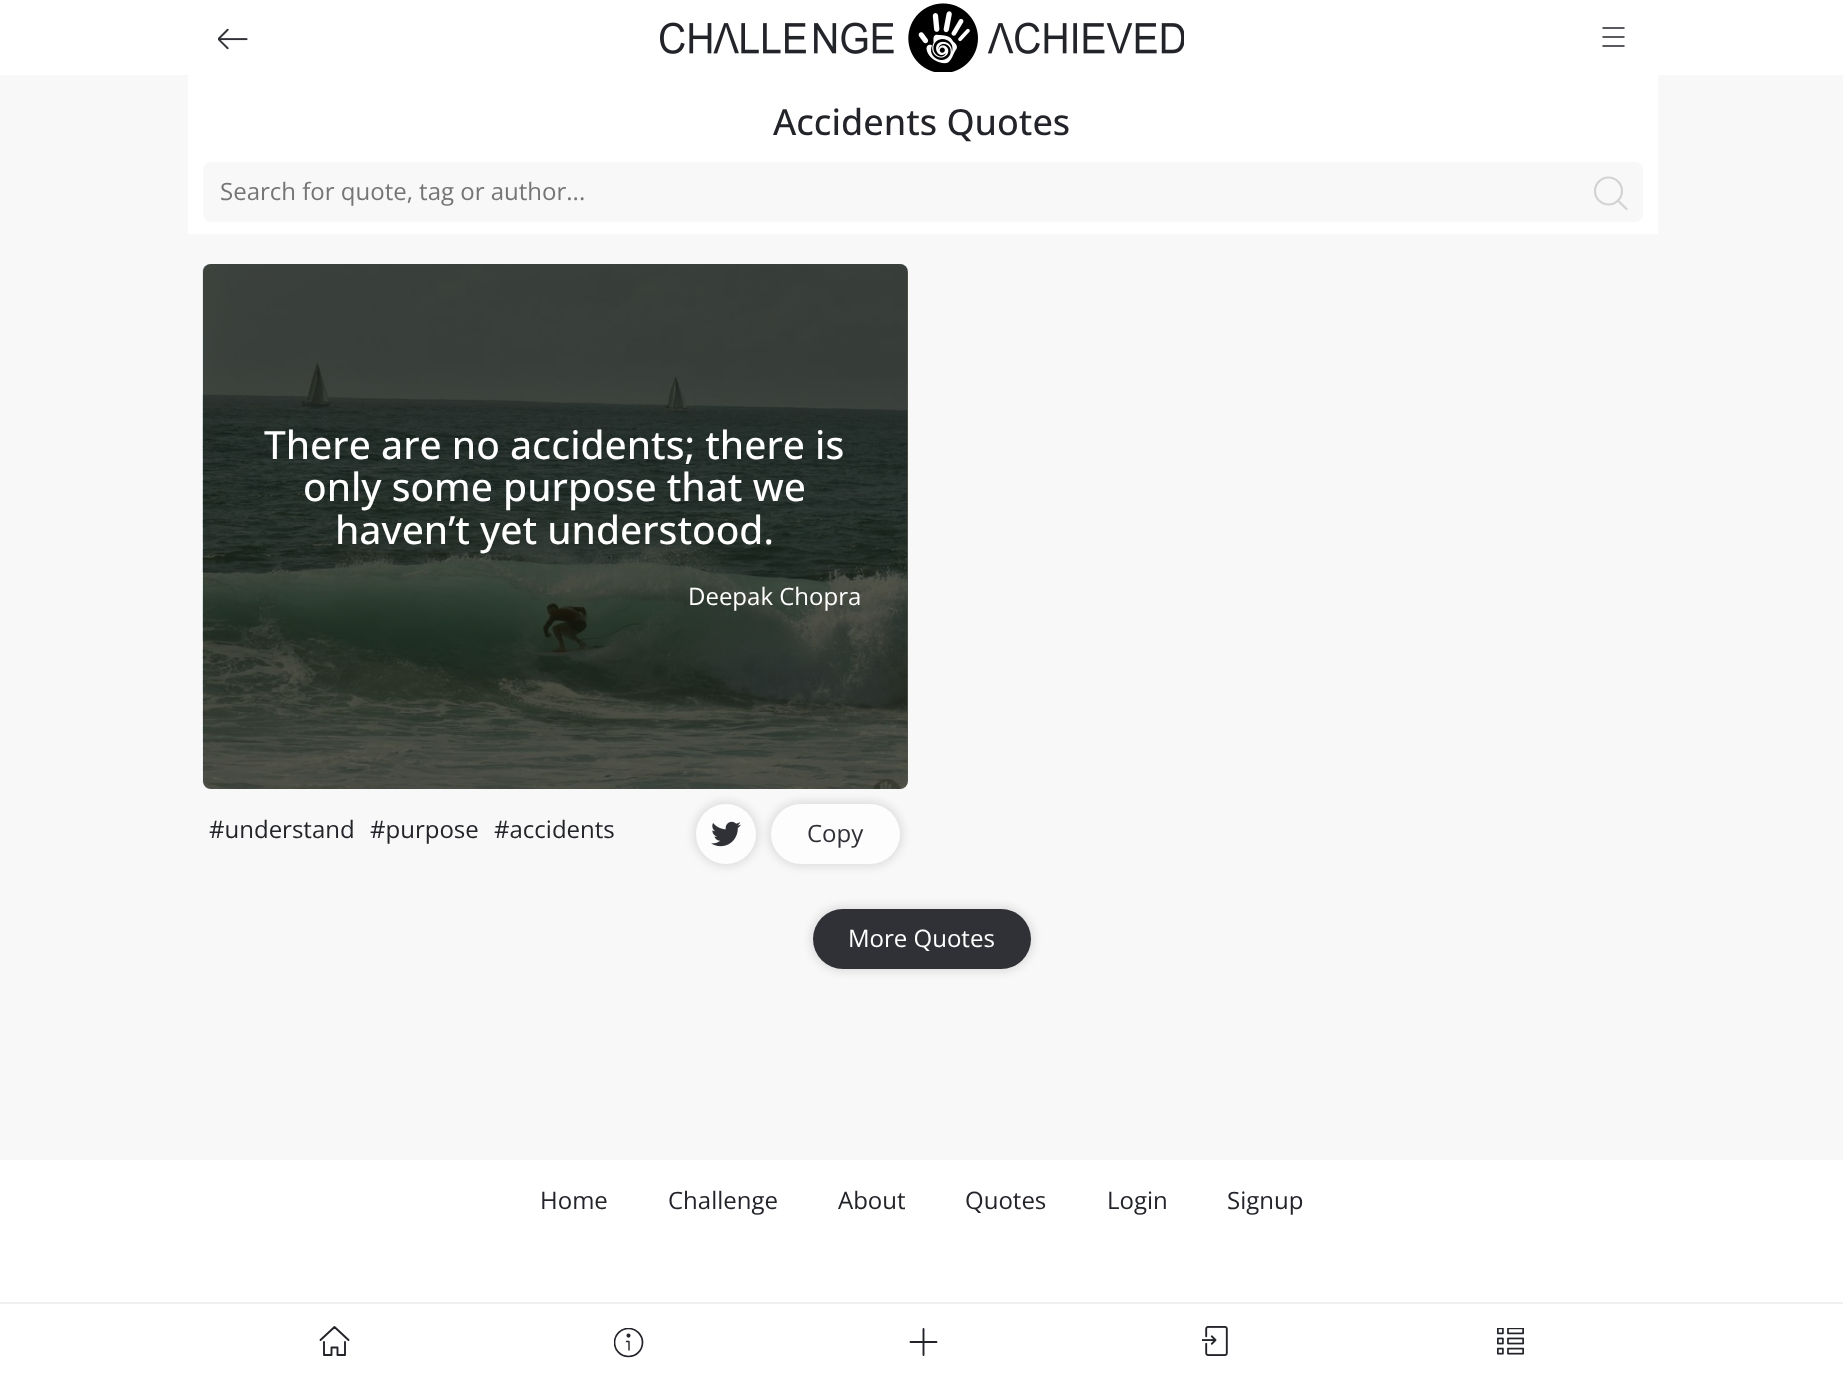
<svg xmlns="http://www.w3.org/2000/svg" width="1843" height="1376">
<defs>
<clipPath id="clip1"><rect x="614" y="1328" width="30" height="30"/></clipPath>
</defs>
<rect width="100%" height="100%" fill="#f8f8f8"/>
<rect width="1843" height="75" fill="#fff"/>
<image x="218" y="28" width="30" height="22" href="media/1.png"/>
<image x="660" y="3" width="524" height="69" href="media/2.png"/>
<path d="M1603 28h21m-21 9h21m-21 9h21" fill="none" stroke="#222429" stroke-width="1.5" stroke-linecap="round" stroke-linejoin="round"/>
<rect x="188" y="75" width="1470" height="159" fill="#fff"/>
<text x="773" y="135" style="font-family:Open Sans;font-size:36px;font-weight:500;fill:#222429">Accidents Quotes</text>
<rect x="203" y="162" width="1440" height="60" rx="8" fill="#f8f8f8"/>
<text x="220" y="200" style="font-family:Open Sans;font-size:24px;fill:#757575">Search for quote, tag or author...</text>
<circle cx="1608.5" cy="191" r="13.5" fill="none" stroke="#d3d3d3" stroke-width="2.2"/>
<path d="M1626.5 209l-8.5-8.5" fill="none" stroke="#d3d3d3" stroke-width="2.2" stroke-linecap="round" stroke-linejoin="round"/>
<image x="202" y="264" width="706" height="525" href="media/3.png"/>
<rect x="203" y="264" width="705" height="525" rx="8" fill="#101100b3"/>
<text x="264" y="459" style="font-family:Open Sans;font-size:39px;font-weight:500;fill:#fff">There are no accidents; there is</text>
<text x="303" y="501" style="font-family:Open Sans;font-size:39px;font-weight:500;fill:#fff">only some purpose that we</text>
<text x="335" y="544" style="font-family:Open Sans;font-size:39px;font-weight:500;fill:#fff">haven’t yet understood.</text>
<text x="688" y="605" style="font-family:Open Sans;font-size:24px;fill:#fff">Deepak Chopra</text>
<text x="209" y="838" style="font-family:Open Sans;font-size:24px;fill:#222429">#understand</text>
<text x="370" y="838" style="font-family:Open Sans;font-size:24px;fill:#222429">#purpose</text>
<text x="494" y="838" style="font-family:Open Sans;font-size:24px;fill:#222429">#accidents</text>
<rect x="693" y="801" width="66" height="66" rx="33" fill="#0000001a" filter="blur(4px)"/>
<circle cx="726" cy="834" r="30" fill="#fdfdfd"/>
<image x="711" y="821" width="30" height="26" href="media/4.png"/>
<rect x="768" y="801" width="135" height="66" rx="33" fill="#0000001a" filter="blur(4px)"/>
<rect x="771" y="804" width="129" height="60" rx="30" fill="#fdfdfd"/>
<text x="807" y="842" style="font-family:Open Sans;font-size:24px;fill:#2f3136">Copy</text>
<rect x="810" y="906" width="224" height="66" rx="33" fill="#0000001a" filter="blur(4px)"/>
<rect x="813" y="909" width="218" height="60" rx="30" fill="#2f3136"/>
<text x="848" y="947" style="font-family:Open Sans;font-size:24px;fill:#fff">More Quotes</text>
<rect y="1160" width="1843" height="216" fill="#fff"/>
<text x="540" y="1209" style="font-family:Open Sans;font-size:24px;fill:#222429">Home</text>
<text x="668" y="1209" style="font-family:Open Sans;font-size:24px;fill:#222429">Challenge</text>
<text x="838" y="1209" style="font-family:Open Sans;font-size:24px;fill:#222429">About</text>
<text x="965" y="1209" style="font-family:Open Sans;font-size:24px;fill:#222429">Quotes</text>
<text x="1107" y="1209" style="font-family:Open Sans;font-size:24px;fill:#222429">Login</text>
<text x="1227" y="1209" style="font-family:Open Sans;font-size:24px;fill:#222429">Signup</text>
<rect y="1302" width="1843" height="2" fill="#efefef"/>
<path d="M348.5 1340l-14-13l-14 13m3.5 2v13h7.5v-7.5h6v7.5h7.5v-13" fill="none" stroke="#222429" stroke-width="1.9" stroke-linecap="round" stroke-linejoin="round"/>
<g clip-path="url(#clip1)">
<circle cx="628.5" cy="1342.5" r="14" fill="none" stroke="#222429" stroke-width="1.7"/>
</g>
<circle cx="628.5" cy="1335.6" r="1.2" fill="#444" stroke="#222429" stroke-width="1.7"/>
<path d="M629 1350v-8.5h-2.5" fill="none" stroke="#222429" stroke-width="1.4" stroke-linecap="round" stroke-linejoin="round"/>
<path d="M923.5 1329v26m-13-13h26" fill="none" stroke="#222429" stroke-width="1.9" stroke-linecap="round" stroke-linejoin="round"/>
<image x="1202" y="1326" width="26" height="30" href="media/5.png"/>
<image x="1497" y="1328" width="27" height="27" href="media/6.png"/>
</svg>
